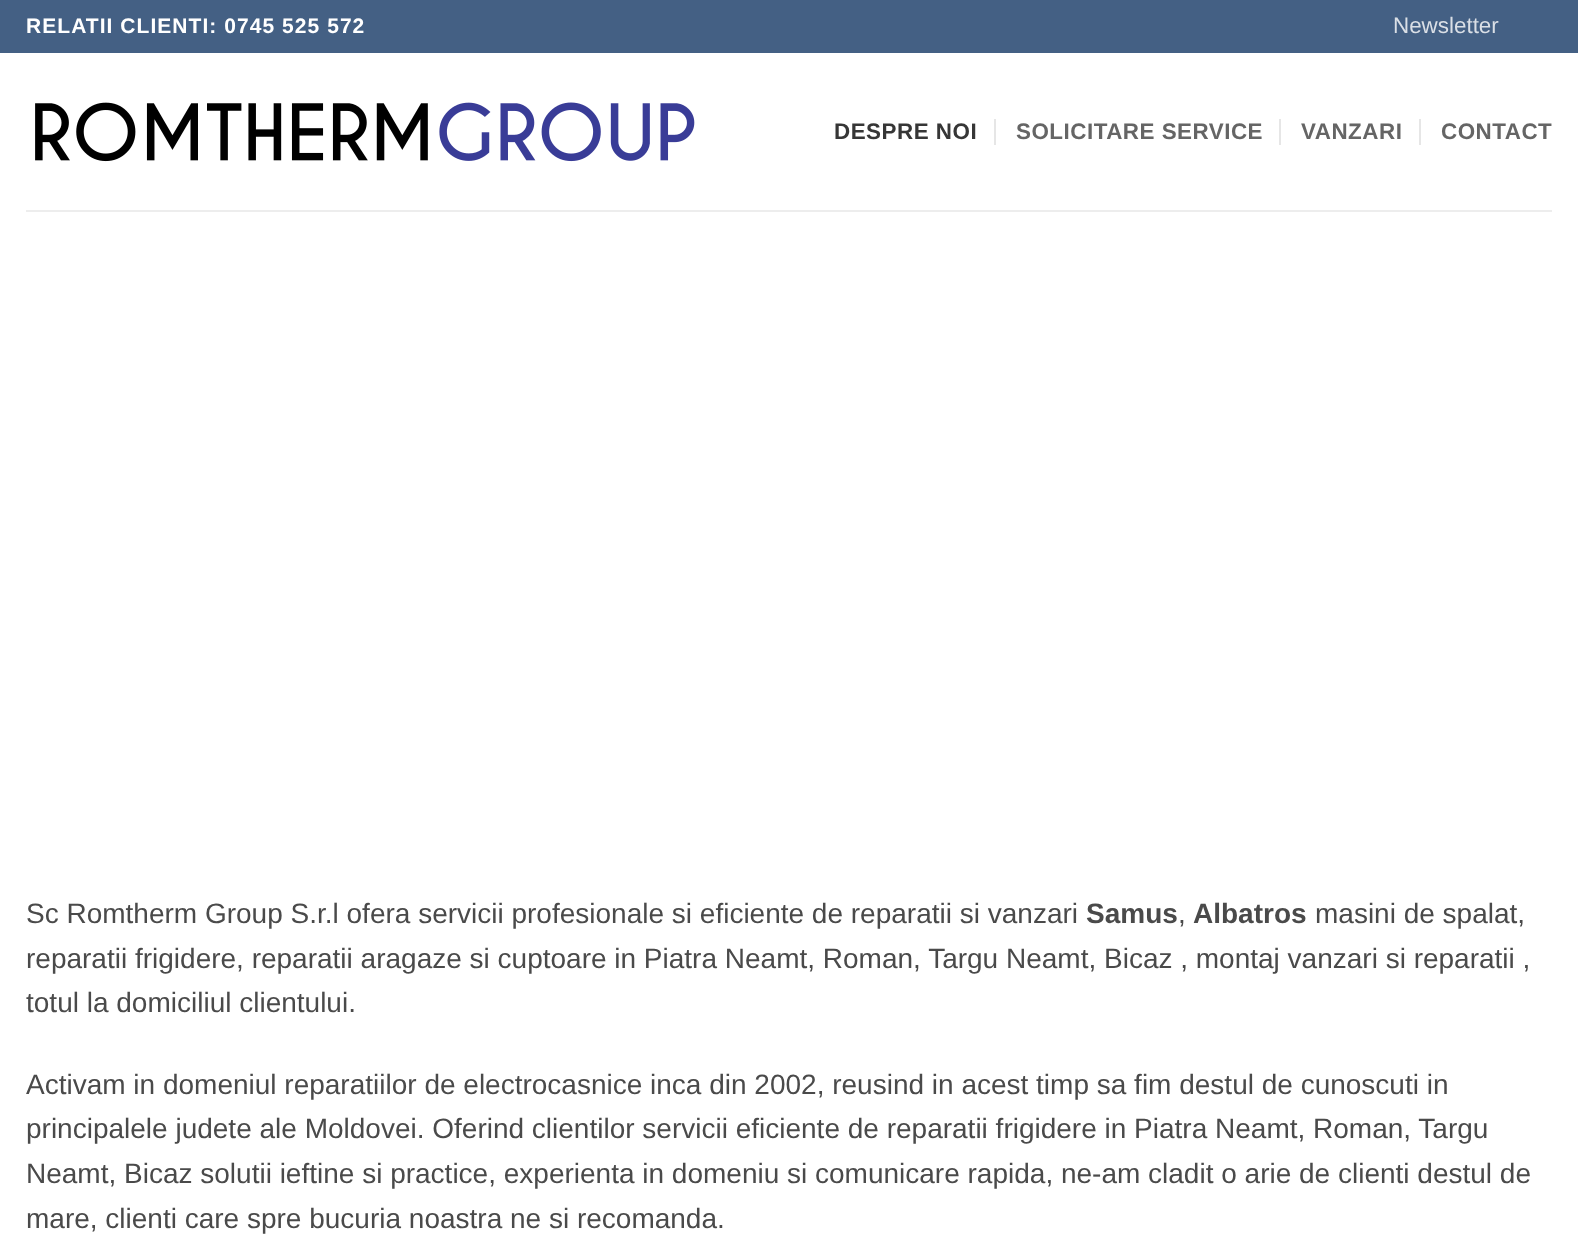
<svg xmlns="http://www.w3.org/2000/svg" width="1578" height="1245">
<rect width="100%" height="100%" fill="#fff"/>
<rect width="1578" height="53" fill="#446084"/>
<text x="26" y="33" style="font-family:Liberation Sans;font-size:21px;font-weight:bold;letter-spacing:1.05px;fill:#fff">RELATII CLIENTI: 0745 525 572</text>
<text x="1393" y="33" style="font-family:Liberation Sans;font-size:22.4px;fill:#dadfe6">Newsletter</text>
<image x="35" y="102" width="660" height="60" href="media/1.png"/>
<text x="834" y="139" style="font-family:Liberation Sans;font-size:22.4px;font-weight:bold;letter-spacing:0.5px;fill:#363636">DESPRE NOI</text>
<rect x="994" y="119" width="2" height="26" fill="#e6e6e6"/>
<text x="1016" y="139" style="font-family:Liberation Sans;font-size:22.4px;font-weight:bold;letter-spacing:0.5px;fill:#656565">SOLICITARE SERVICE</text>
<rect x="1279" y="119" width="2" height="26" fill="#e6e6e6"/>
<text x="1301" y="139" style="font-family:Liberation Sans;font-size:22.4px;font-weight:bold;letter-spacing:0.5px;fill:#656565">VANZARI</text>
<rect x="1419" y="119" width="2" height="26" fill="#e6e6e6"/>
<text x="1441" y="139" style="font-family:Liberation Sans;font-size:22.4px;font-weight:bold;letter-spacing:0.5px;fill:#656565">CONTACT</text>
<rect x="26" y="210" width="1526" height="2" fill="#ededed"/>
<text x="26" y="923" style="font-family:Liberation Sans;font-size:28px;fill:#4a4a4a">Sc Romtherm Group S.r.l ofera servicii profesionale si eficiente de reparatii si vanzari</text>
<text x="1086" y="923" style="font-family:Liberation Sans;font-size:28px;font-weight:bold;fill:#4a4a4a">Samus</text>
<text x="1178" y="923" style="font-family:Liberation Sans;font-size:28px;fill:#4a4a4a">,</text>
<text x="1193" y="923" style="font-family:Liberation Sans;font-size:28px;font-weight:bold;fill:#4a4a4a">Albatros</text>
<text x="1315" y="923" style="font-family:Liberation Sans;font-size:28px;fill:#4a4a4a">masini de spalat,</text>
<text x="26" y="968" style="font-family:Liberation Sans;font-size:28px;fill:#4a4a4a">reparatii frigidere, reparatii aragaze si cuptoare in Piatra Neamt, Roman, Targu Neamt, Bicaz , montaj vanzari si reparatii ,</text>
<text x="26" y="1012" style="font-family:Liberation Sans;font-size:28px;fill:#4a4a4a">totul la domiciliul clientului.</text>
<text x="26" y="1094" style="font-family:Liberation Sans;font-size:28px;fill:#4a4a4a">Activam in domeniul reparatiilor de electrocasnice inca din 2002, reusind in acest timp sa fim destul de cunoscuti in</text>
<text x="26" y="1138" style="font-family:Liberation Sans;font-size:28px;fill:#4a4a4a">principalele judete ale Moldovei. Oferind clientilor servicii eficiente de reparatii frigidere in Piatra Neamt, Roman, Targu</text>
<text x="26" y="1183" style="font-family:Liberation Sans;font-size:28px;fill:#4a4a4a">Neamt, Bicaz solutii ieftine si practice, experienta in domeniu si comunicare rapida, ne-am cladit o arie de clienti destul de</text>
<text x="26" y="1228" style="font-family:Liberation Sans;font-size:28px;fill:#4a4a4a">mare, clienti care spre bucuria noastra ne si recomanda.</text>
</svg>
